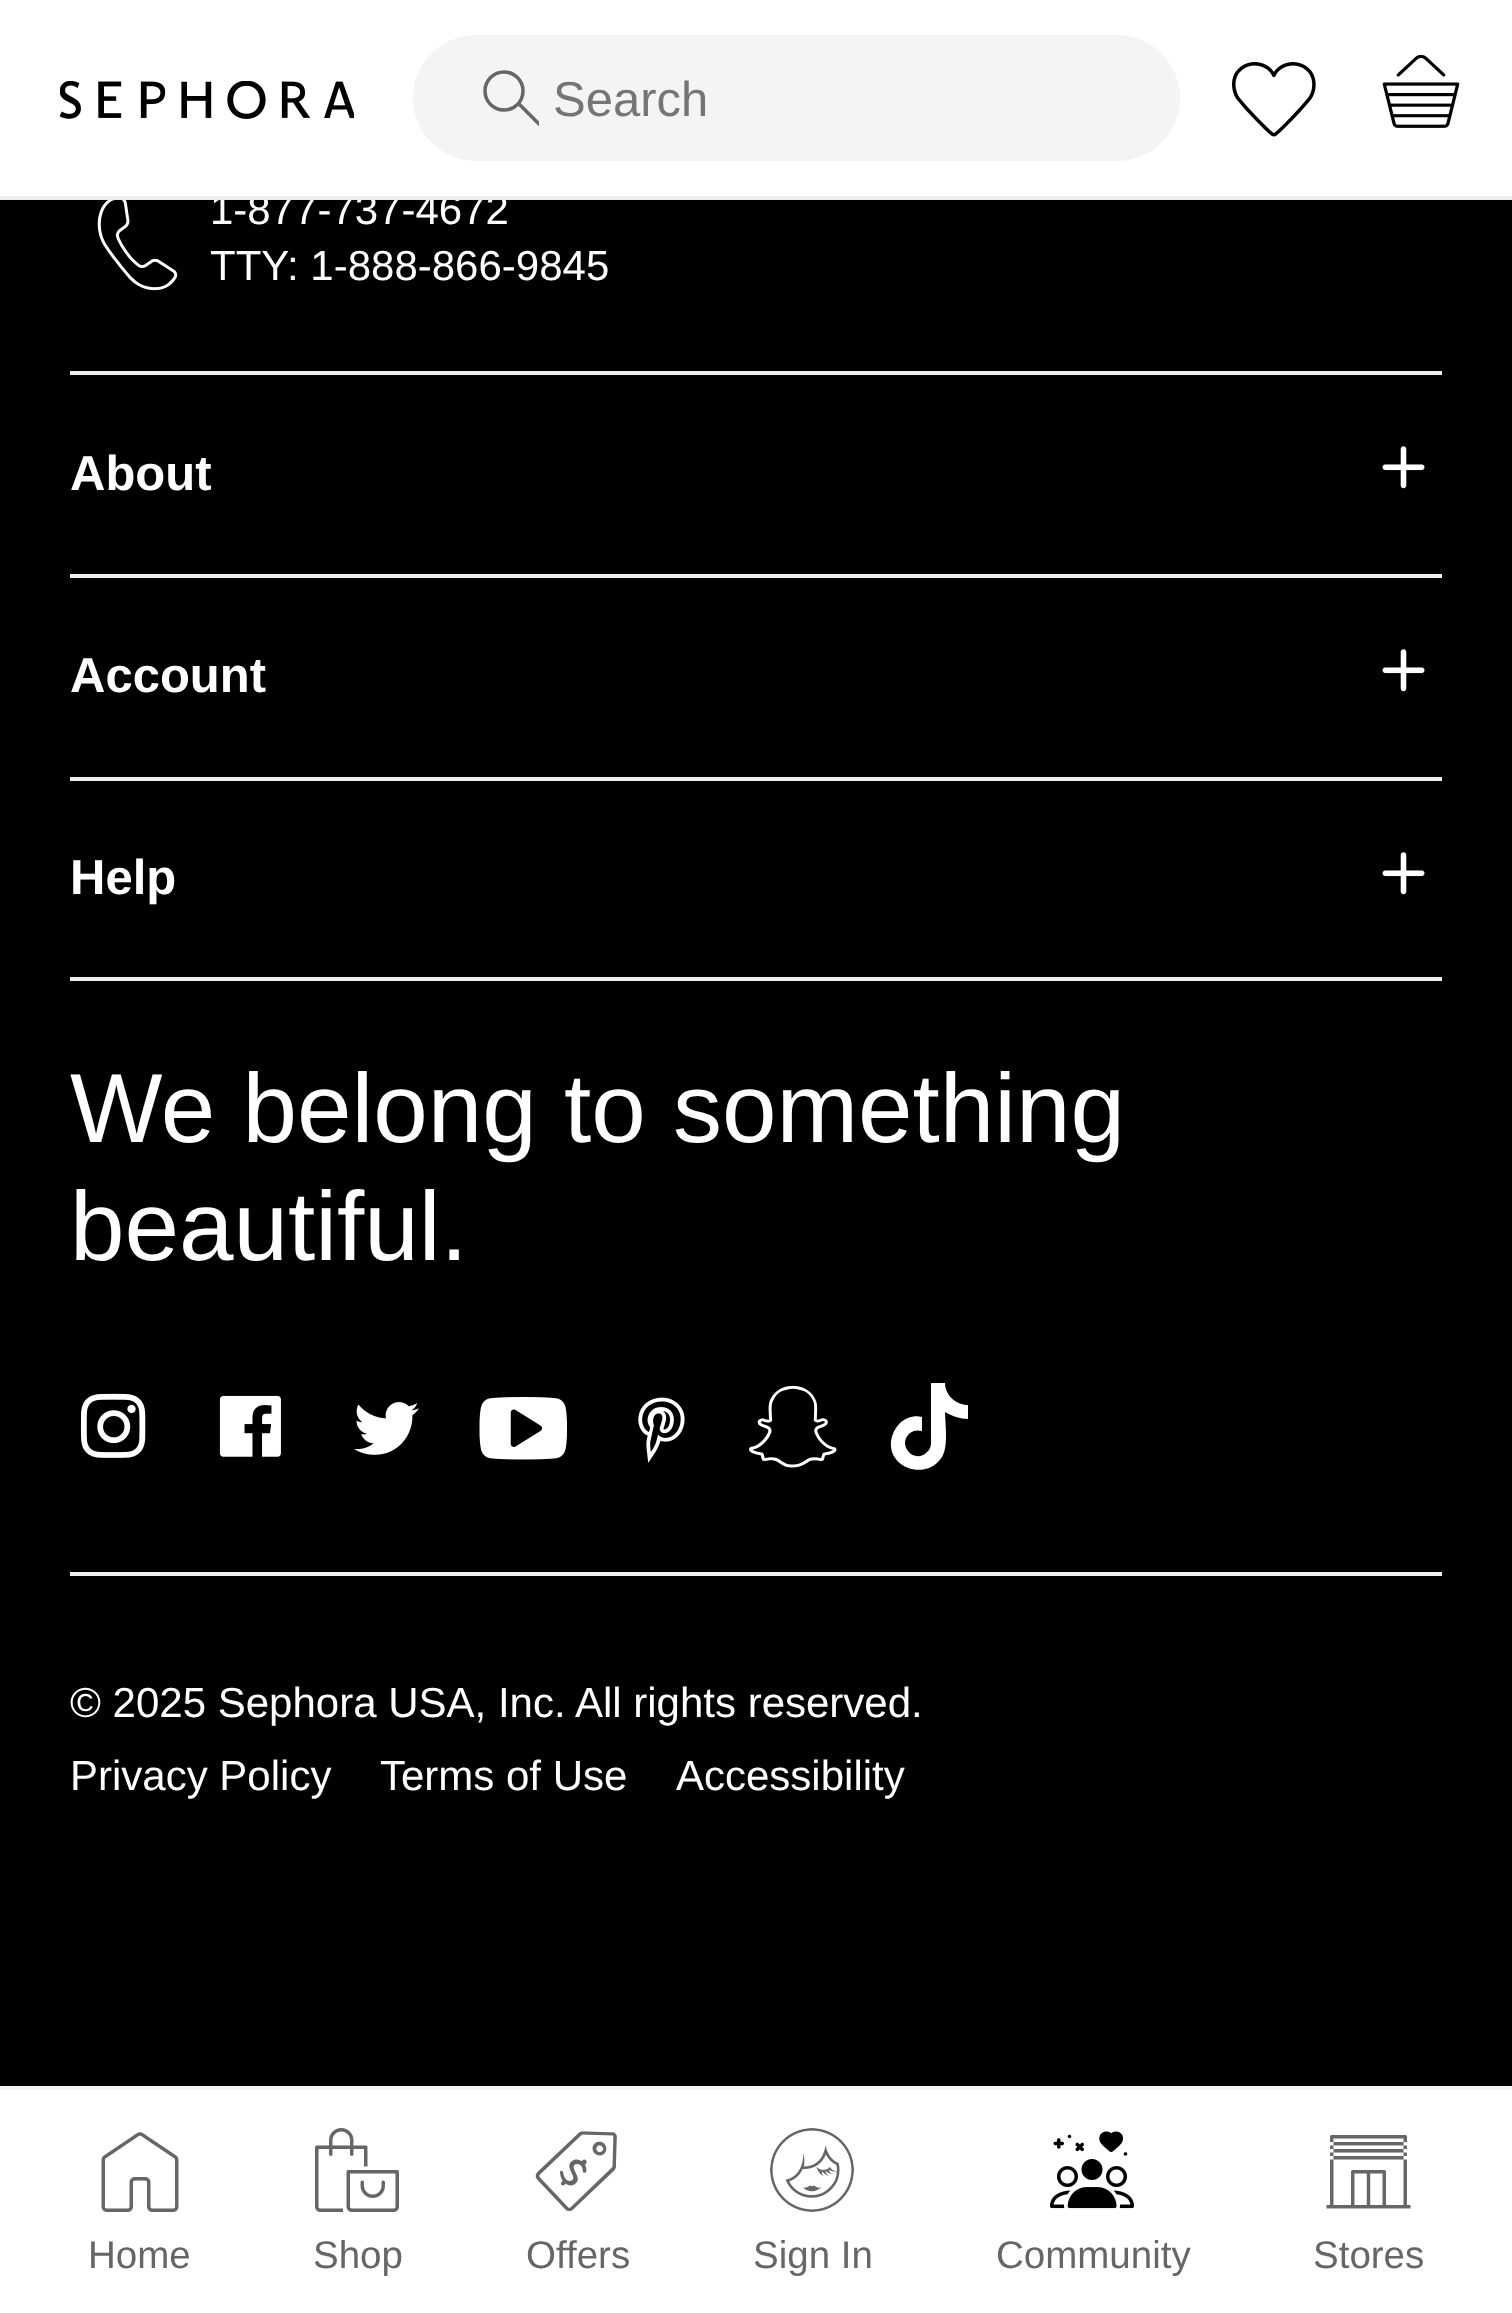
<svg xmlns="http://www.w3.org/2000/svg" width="1512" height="2313">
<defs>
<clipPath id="clip1"><rect x="483" y="70" width="56" height="56"/></clipPath>
</defs>
<rect width="100%" height="100%" fill="#000"/>
<text x="210" y="224" style="font-family:Liberation Sans;font-size:42px;fill:#fff">1-877-737-4672</text>
<rect y="196" width="1512" height="4" fill="#eee"/>
<rect width="1512" height="196" fill="#fff"/>
<image x="60" y="81" width="294" height="38" href="media/1.png"/>
<rect x="413" y="35" width="767" height="126" rx="63" fill="#f4f4f4"/>
<circle cx="504" cy="91" r="19" fill="none" stroke="#666" stroke-width="3.5"/>
<g clip-path="url(#clip1)">
<path d="M519 104l21 21" fill="none" stroke="#666" stroke-width="3.5"/>
</g>
<text x="553" y="116" style="font-family:Liberation Sans;font-size:49px;fill:#757575">Search</text>
<image x="1232" y="62" width="84" height="75" href="media/2.png"/>
<image x="1382" y="54" width="78" height="74" href="media/3.png"/>
<rect y="2090" width="1512" height="223" fill="#fff"/>
<rect y="2086" width="1512" height="4" fill="#f4f4f4"/>
<image x="101" y="2132" width="78" height="80" href="media/4.png"/>
<text x="88" y="2268" style="font-family:Liberation Sans;font-size:38.5px;fill:#666">Home</text>
<image x="315" y="2128" width="84" height="84" href="media/5.png"/>
<text x="313" y="2268" style="font-family:Liberation Sans;font-size:38.5px;fill:#666">Shop</text>
<image x="535" y="2131" width="82" height="81" href="media/6.png"/>
<text x="526" y="2268" style="font-family:Liberation Sans;font-size:38.5px;fill:#666">Offers</text>
<image x="770" y="2128" width="84" height="84" href="media/7.png"/>
<text x="753" y="2268" style="font-family:Liberation Sans;font-size:38.5px;fill:#666">Sign In</text>
<image x="1050" y="2131" width="84" height="78" href="media/8.png"/>
<text x="996" y="2268" style="font-family:Liberation Sans;font-size:38.5px;fill:#666">Community</text>
<image x="1326" y="2135" width="85" height="74" href="media/9.png"/>
<text x="1313" y="2268" style="font-family:Liberation Sans;font-size:38.5px;fill:#666">Stores</text>
<image x="97" y="200" width="81" height="91" href="media/10.png"/>
<text x="210" y="280" style="font-family:Liberation Sans;font-size:42px;fill:#fff">TTY: 1-888-866-9845</text>
<rect x="70" y="1572" width="1372" height="4" fill="#eee"/>
<image x="80" y="1393" width="66" height="65" href="media/11.png"/>
<image x="219" y="1395" width="62" height="62" href="media/12.png"/>
<image x="354" y="1402" width="65" height="53" href="media/13.png"/>
<image x="479" y="1397" width="88" height="63" href="media/14.png"/>
<image x="638" y="1397" width="47" height="66" href="media/15.png"/>
<image x="749" y="1385" width="88" height="83" href="media/16.png"/>
<path d="M968 1405c-12 0-23-10-23-22h-14v53c0 6 1 12-4 16c-12 13-31-7-17-19c4-3 8-3 12-2v-14c-8-2-16 1-22 6c-5 5-8 11-9 18c-3 28 36 40 51 16c4-7 4-16 4-24l-1-21c7 4 15 7 23 7z" fill="#fff"/>
<text x="70" y="1717" style="font-family:Liberation Sans;font-size:42px;fill:#fff">© 2025 Sephora USA, Inc. All rights reserved.</text>
<text x="70" y="1790" style="font-family:Liberation Sans;font-size:42px;fill:#fff">Privacy Policy</text>
<text x="380" y="1790" style="font-family:Liberation Sans;font-size:42px;fill:#fff">Terms of Use</text>
<text x="676" y="1790" style="font-family:Liberation Sans;font-size:42px;fill:#fff">Accessibility</text>
<rect x="70" y="371" width="1372" height="4" fill="#eee"/>
<rect x="70" y="574" width="1372" height="4" fill="#eee"/>
<text x="70" y="490" style="font-family:Liberation Sans;font-size:49px;font-weight:bold;fill:#fff">About</text>
<image x="1382" y="446" width="43" height="43" href="media/17.png"/>
<rect x="70" y="777" width="1372" height="4" fill="#eee"/>
<text x="70" y="692" style="font-family:Liberation Sans;font-size:49px;font-weight:bold;fill:#fff">Account</text>
<image x="1382" y="649" width="43" height="43" href="media/17.png"/>
<rect x="70" y="977" width="1372" height="4" fill="#eee"/>
<text x="70" y="894" style="font-family:Liberation Sans;font-size:49px;font-weight:bold;fill:#fff">Help</text>
<image x="1382" y="852" width="43" height="43" href="media/17.png"/>
<text x="70" y="1142" style="font-family:Liberation Sans;font-size:98px;fill:#fff">We belong to something</text>
<text x="70" y="1260" style="font-family:Liberation Sans;font-size:98px;fill:#fff">beautiful.</text>
</svg>
